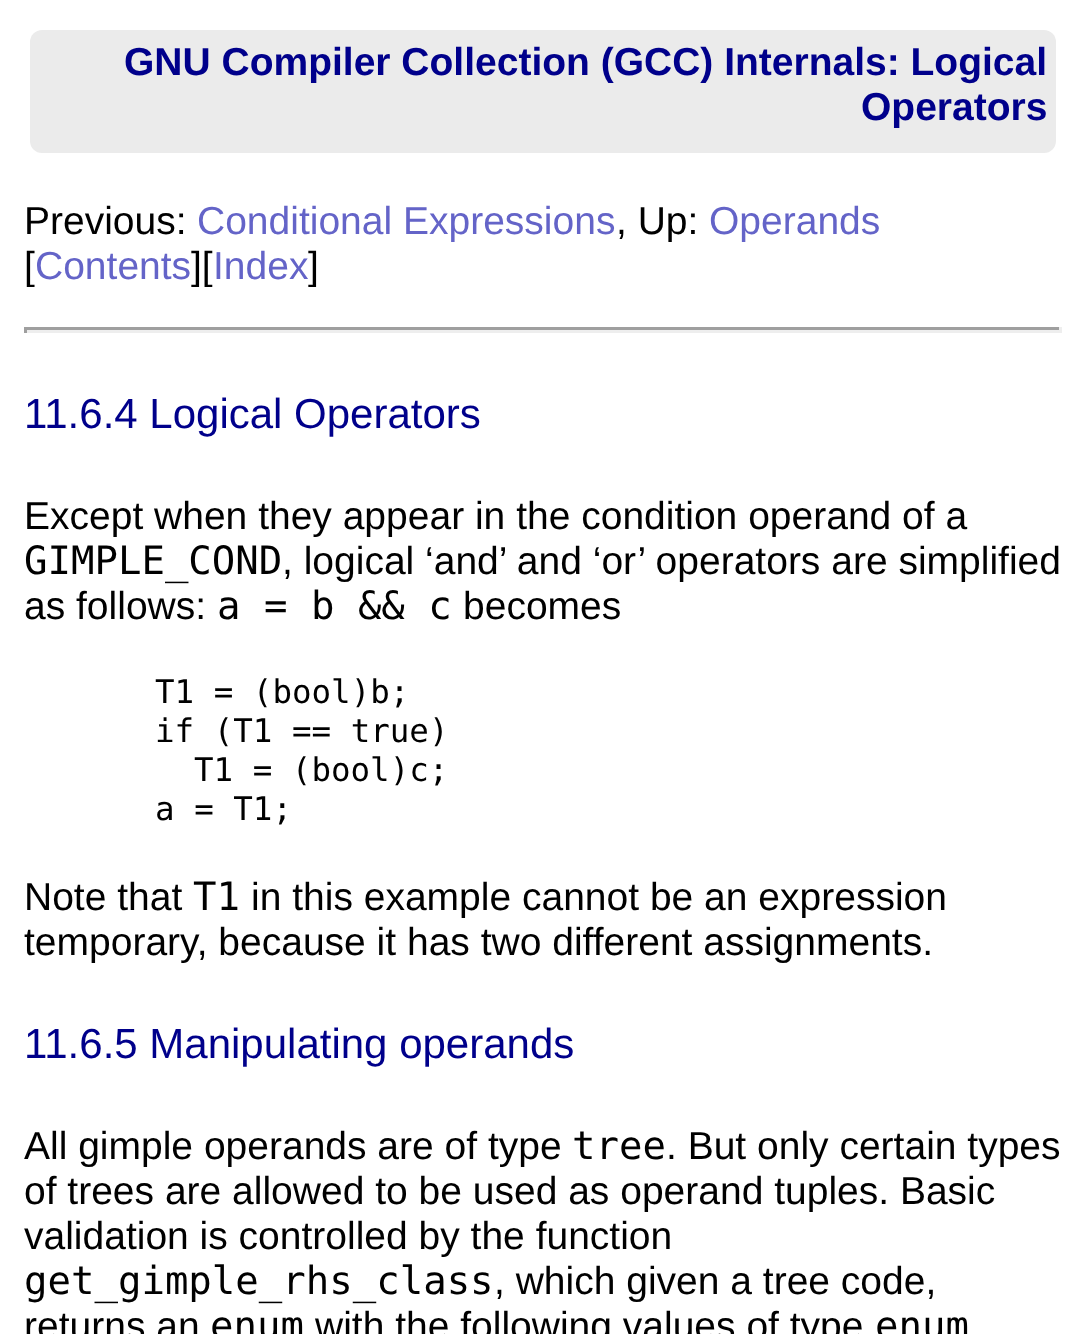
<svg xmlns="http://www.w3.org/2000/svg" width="1084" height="1334">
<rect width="100%" height="100%" fill="#fff"/>
<rect x="30" y="30" width="1026" height="123" rx="12" fill="#ebebeb"/>
<text x="124" y="75" style="font-family:Liberation Sans;font-size:39px;font-weight:bold;fill:#00008b">GNU Compiler Collection (GCC) Internals: Logical</text>
<text x="861" y="120" style="font-family:Liberation Sans;font-size:39px;font-weight:bold;fill:#00008b">Operators</text>
<text x="24" y="234" style="font-family:Liberation Sans;font-size:39px;fill:#000">Previous:</text>
<text x="197" y="234" style="font-family:Liberation Sans;font-size:39px;fill:#6464c8">Conditional Expressions</text>
<text x="616" y="234" style="font-family:Liberation Sans;font-size:39px;fill:#000">, Up:</text>
<text x="709" y="234" style="font-family:Liberation Sans;font-size:39px;fill:#6464c8">Operands</text>
<text x="24" y="279" style="font-family:Liberation Sans;font-size:39px;fill:#000">[</text>
<text x="35" y="279" style="font-family:Liberation Sans;font-size:39px;fill:#6464c8">Contents</text>
<text x="191" y="279" style="font-family:Liberation Sans;font-size:39px;fill:#000">][</text>
<text x="213" y="279" style="font-family:Liberation Sans;font-size:39px;fill:#6464c8">Index</text>
<text x="308" y="279" style="font-family:Liberation Sans;font-size:39px;fill:#000">]</text>
<rect x="24" y="327" width="1038" height="3" fill="#9f9f9f"/>
<rect x="1059" y="327" width="3" height="6" fill="#eee"/>
<rect x="24" y="330" width="1038" height="3" fill="#eee"/>
<rect x="24" y="327" width="3" height="6" fill="#9f9f9f"/>
<text x="24" y="428" style="font-family:Liberation Sans;font-size:42px;fill:#00008b">11.6.4 Logical Operators</text>
<text x="24" y="529" style="font-family:Liberation Sans;font-size:39px;fill:#000">Except when they appear in the condition operand of a</text>
<text x="24" y="574" style="font-family:DejaVu Sans Mono;font-size:39px;fill:#000">GIMPLE_COND</text>
<text x="282" y="574" style="font-family:Liberation Sans;font-size:39px;fill:#000">, logical ‘and’ and ‘or’ operators are simplified</text>
<text x="24" y="619" style="font-family:Liberation Sans;font-size:39px;fill:#000">as follows:</text>
<text x="217" y="619" style="font-family:DejaVu Sans Mono;font-size:39px;fill:#000">a = b &amp;&amp; c</text>
<text x="463" y="619" style="font-family:Liberation Sans;font-size:39px;fill:#000">becomes</text>
<text x="155" y="703" style="font-family:DejaVu Sans Mono;font-size:32.5px;fill:#000">T1 = (bool)b;</text>
<text x="155" y="742" style="font-family:DejaVu Sans Mono;font-size:32.5px;fill:#000">if (T1 == true)</text>
<text x="194" y="781" style="font-family:DejaVu Sans Mono;font-size:32.5px;fill:#000">T1 = (bool)c;</text>
<text x="155" y="820" style="font-family:DejaVu Sans Mono;font-size:32.5px;fill:#000">a = T1;</text>
<text x="24" y="910" style="font-family:Liberation Sans;font-size:39px;fill:#000">Note that</text>
<text x="193" y="910" style="font-family:DejaVu Sans Mono;font-size:39px;fill:#000">T1</text>
<text x="251" y="910" style="font-family:Liberation Sans;font-size:39px;fill:#000">in this example cannot be an expression</text>
<text x="24" y="955" style="font-family:Liberation Sans;font-size:39px;fill:#000">temporary, because it has two different assignments.</text>
<text x="24" y="1058" style="font-family:Liberation Sans;font-size:42px;fill:#00008b">11.6.5 Manipulating operands</text>
<text x="24" y="1159" style="font-family:Liberation Sans;font-size:39px;fill:#000">All gimple operands are of type</text>
<text x="572" y="1159" style="font-family:DejaVu Sans Mono;font-size:39px;fill:#000">tree</text>
<text x="666" y="1159" style="font-family:Liberation Sans;font-size:39px;fill:#000">. But only certain types</text>
<text x="24" y="1204" style="font-family:Liberation Sans;font-size:39px;fill:#000">of trees are allowed to be used as operand tuples. Basic</text>
<text x="24" y="1249" style="font-family:Liberation Sans;font-size:39px;fill:#000">validation is controlled by the function</text>
<text x="24" y="1294" style="font-family:DejaVu Sans Mono;font-size:39px;fill:#000">get_gimple_rhs_class</text>
<text x="494" y="1294" style="font-family:Liberation Sans;font-size:39px;fill:#000">, which given a tree code,</text>
<text x="24" y="1339" style="font-family:Liberation Sans;font-size:39px;fill:#000">returns an</text>
<text x="210" y="1339" style="font-family:DejaVu Sans Mono;font-size:39px;fill:#000">enum</text>
<text x="315" y="1339" style="font-family:Liberation Sans;font-size:39px;fill:#000">with the following values of type</text>
<text x="875" y="1339" style="font-family:DejaVu Sans Mono;font-size:39px;fill:#000">enum</text>
</svg>
